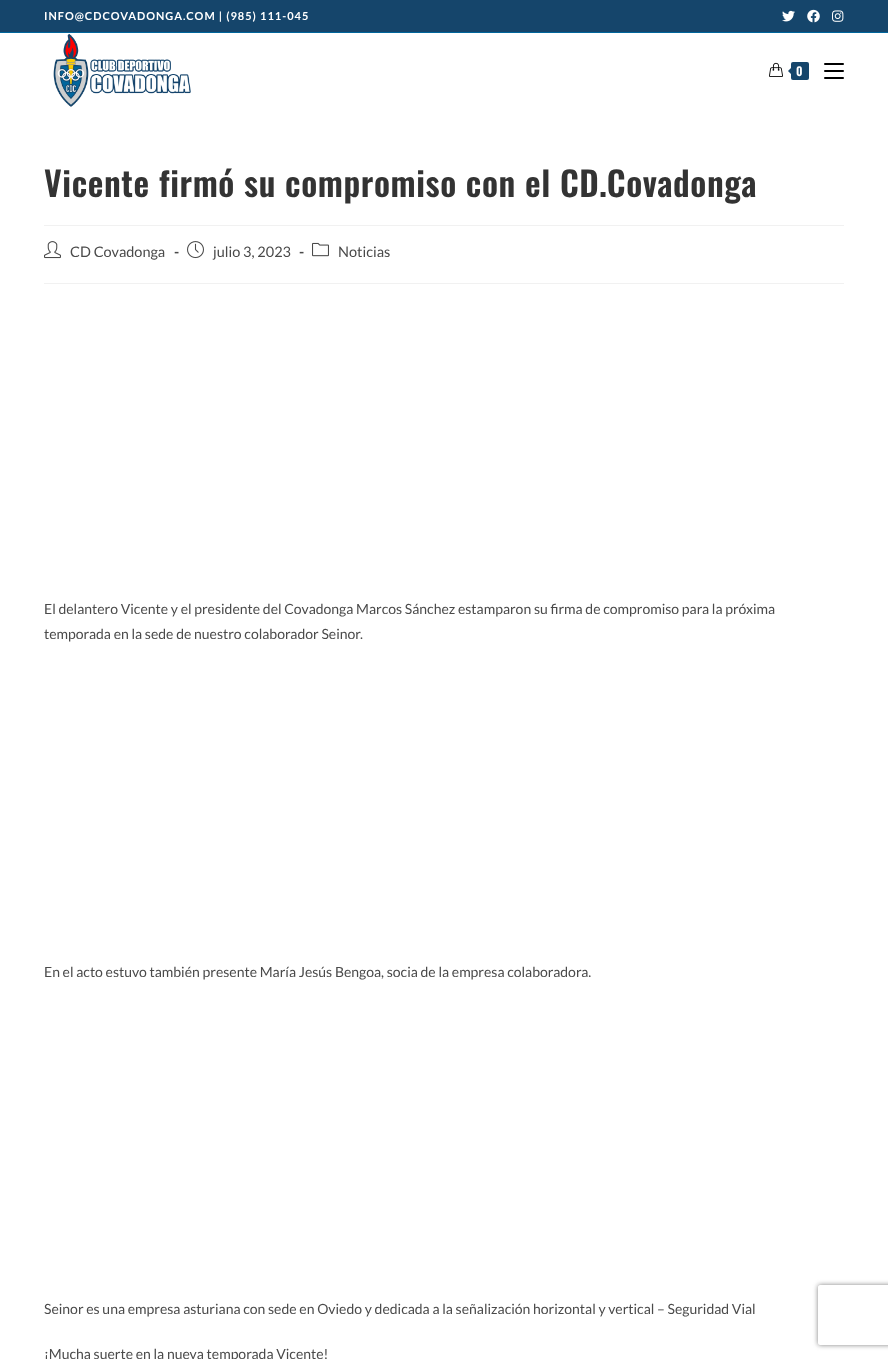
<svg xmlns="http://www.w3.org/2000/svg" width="888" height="1359">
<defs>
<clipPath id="clip1"><path d="M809 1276h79v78h-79zm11 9h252c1 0 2 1 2 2v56c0 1-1 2-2 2h-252c-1 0-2-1-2-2v-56c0-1 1-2 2-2z" clip-rule="evenodd"/></clipPath>
</defs>
<rect width="100%" height="100%" fill="#fff"/>
<rect width="888" height="32" fill="#15456b"/>
<rect y="32" width="888" height="1" fill="#01669c"/>
<text x="44" y="20" style="font-family:Lato;font-size:11px;font-weight:bold;letter-spacing:1px;fill:#fff">INFO@CDCOVADONGA.COM | (985) 111-045</text>
<image x="782" y="10" width="13" height="12" href="media/1.png"/>
<image x="807" y="9" width="13" height="14" href="media/2.png"/>
<image x="832" y="10" width="12" height="12" href="media/3.png"/>
<image x="53" y="34" width="138" height="73" href="media/4.png"/>
<image x="769" y="62" width="14" height="15" href="media/5.png"/>
<rect x="791" y="62" width="18" height="18" rx="2" fill="#15456b"/>
<path d="M793 66v10l-5-5z" fill="#15456b"/>
<text x="796" y="76" style="font-family:Oswald;font-size:12px;font-weight:600;letter-spacing:0.6px;fill:#fff">0</text>
<rect x="824" y="63" width="20" height="2" rx="1" fill="#000"/>
<rect x="824" y="70" width="20" height="2" rx="1" fill="#000"/>
<rect x="824" y="77" width="20" height="2" rx="1" fill="#000"/>
<rect x="44" y="225" width="800" height="1" fill="#f1f1f1"/>
<text x="44" y="197" style="font-family:Oswald;font-size:34px;font-weight:600;letter-spacing:0.6px;fill:#333">Vicente firmó su compromiso con el CD.Covadonga</text>
<rect x="44" y="283" width="800" height="1" fill="#f1f1f1"/>
<image x="44" y="241" width="17" height="18" href="media/6.png"/>
<text x="70" y="257" style="font-family:Lato;font-size:14.5px;fill:#4a4a4a">CD Covadonga</text>
<text x="174" y="257" style="font-family:Lato;font-size:14.5px;font-weight:bold;fill:#4a4a4a">-</text>
<image x="187" y="241" width="17" height="18" href="media/7.png"/>
<text x="213" y="257" style="font-family:Lato;font-size:14.5px;fill:#4a4a4a">julio 3, 2023</text>
<text x="299" y="257" style="font-family:Lato;font-size:14.5px;font-weight:bold;fill:#4a4a4a">-</text>
<image x="312" y="242" width="17" height="15" href="media/8.png"/>
<text x="338" y="257" style="font-family:Lato;font-size:14.5px;fill:#4a4a4a">Noticias</text>
<text x="44" y="614" style="font-family:Lato;font-size:14px;fill:#4a4a4a">El delantero Vicente y el presidente del Covadonga Marcos Sánchez estamparon su firma de compromiso para la próxima</text>
<text x="44" y="639" style="font-family:Lato;font-size:14px;fill:#4a4a4a">temporada en la sede de nuestro colaborador Seinor.</text>
<text x="44" y="977" style="font-family:Lato;font-size:14px;fill:#4a4a4a">En el acto estuvo también presente María Jesús Bengoa, socia de la empresa colaboradora.</text>
<text x="44" y="1314" style="font-family:Lato;font-size:14px;fill:#4a4a4a">Seinor es una empresa asturiana con sede en Oviedo y dedicada a la señalización horizontal y vertical – Seguridad Vial</text>
<text x="44" y="1359" style="font-family:Lato;font-size:14px;fill:#4a4a4a">¡Mucha suerte en la nueva temporada Vicente!</text>
<g clip-path="url(#clip1)">
<rect x="818" y="1285" width="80" height="60" rx="2" fill="#808080" filter="blur(2.5px)"/>
</g>
</svg>
